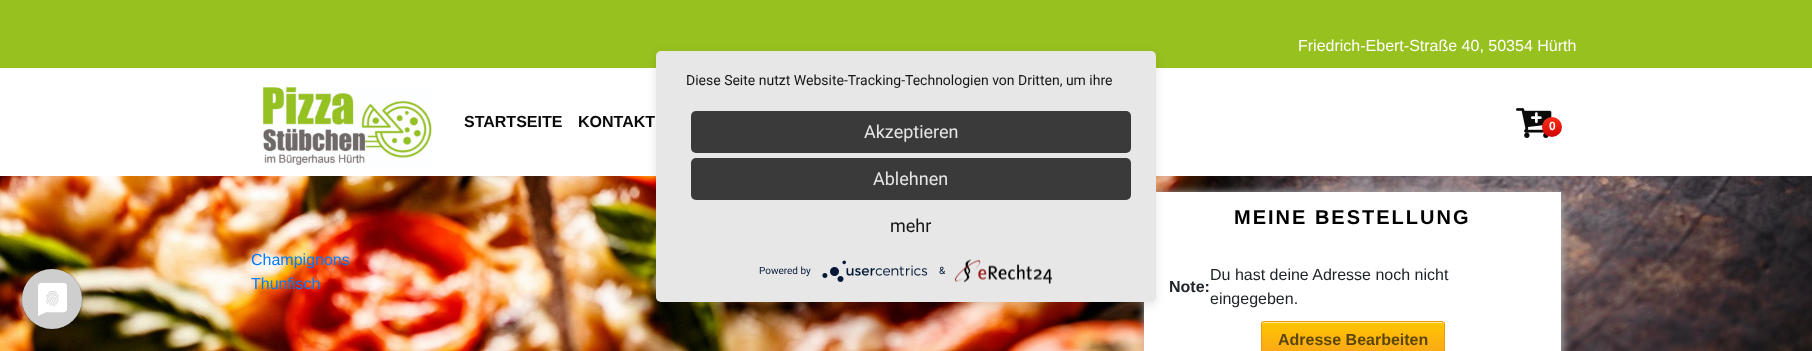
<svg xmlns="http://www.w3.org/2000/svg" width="1812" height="351">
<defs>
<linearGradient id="g1" gradientUnits="userSpaceOnUse" x1="1552" y1="117" x2="1552" y2="137"><stop offset="0" stop-color="#ff3019"/><stop offset="1" stop-color="#cf0404"/></linearGradient>
<clipPath id="clip1"><rect x="1261" y="321" width="184" height="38" rx="3"/></clipPath>
<linearGradient id="g2" gradientUnits="userSpaceOnUse" x1="1353" y1="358" x2="1353" y2="322"><stop offset="0" stop-color="#faa21b"/><stop offset="1" stop-color="#ffc600"/></linearGradient>
</defs>
<rect width="100%" height="100%" fill="#fff"/>
<image x="0" y="176" width="1812" height="175" href="media/1.png"/>
<rect width="1812" height="68" fill="#97c11f"/>
<text x="1298" y="51" style="font-family:Liberation Sans;font-size:16px;fill:#fff">Friedrich-Ebert-Straße 40, 50354 Hürth</text>
<rect x="1145" y="193" width="417" height="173" fill="#bbb" filter="blur(5px)"/>
<rect x="1156" y="192" width="405" height="48" fill="#fff"/>
<rect x="1144" y="240" width="417" height="111" fill="#fff"/>
<rect x="656" y="54" width="500" height="251" rx="5" fill="#0000001a" filter="blur(5px)"/>
<rect x="656" y="51" width="500" height="251" rx="5" fill="#e7e7e7"/>
<text x="686" y="85" style="font-family:Roboto;font-size:14px;fill:#161616">Diese Seite nutzt Website-Tracking-Technologien von Dritten, um ihre</text>
<rect x="691" y="111" width="440" height="42" rx="5" fill="#3a3a3a"/>
<text x="864" y="138" style="font-family:Roboto;font-size:18px;fill:#e6e6e6">Akzeptieren</text>
<rect x="691" y="158" width="440" height="42" rx="5" fill="#3a3a3a"/>
<text x="873" y="185" style="font-family:Roboto;font-size:18px;fill:#e6e6e6">Ablehnen</text>
<text x="890" y="232" style="font-family:Roboto;font-size:18px;fill:#161616">mehr</text>
<text x="759" y="274" style="font-family:Roboto;font-size:10px;fill:#021836">Powered by</text>
<image x="822" y="260" width="106" height="22" href="media/2.png"/>
<text x="939" y="274" style="font-family:Roboto;font-size:10px;fill:#021836">&amp;</text>
<image x="955" y="259" width="97" height="25" href="media/3.png"/>
<image x="20" y="268" width="64" height="62" href="media/4.png"/>
<image x="263" y="87" width="169" height="79" href="media/5.png"/>
<text x="464" y="127" style="font-family:Liberation Sans;font-size:16px;font-weight:bold;fill:#0a0a0a">STARTSEITE</text>
<text x="578" y="127" style="font-family:Liberation Sans;font-size:16px;font-weight:bold;fill:#0a0a0a">KONTAKT</text>
<image x="1516" y="108" width="36" height="30" href="media/6.png"/>
<circle cx="1552" cy="127" r="10" fill="url(#g1)"/>
<text x="1549" y="130" style="font-family:Liberation Sans;font-size:12px;font-weight:bold;fill:#fff">0</text>
<text x="251" y="265" style="font-family:Liberation Sans;font-size:16px;fill:#007bff">Champignons</text>
<text x="251" y="289" style="font-family:Liberation Sans;font-size:16px;fill:#007bff">Thunfisch</text>
<text x="1234" y="224" style="font-family:Liberation Sans;font-size:20px;font-weight:bold;letter-spacing:2px;fill:#000">MEINE BESTELLUNG</text>
<text x="1210" y="280" style="font-family:Liberation Sans;font-size:16px;fill:#212529">Du hast deine Adresse noch nicht</text>
<text x="1169" y="292" style="font-family:Liberation Sans;font-size:16px;font-weight:bold;fill:#212529">Note:</text>
<text x="1210" y="304" style="font-family:Liberation Sans;font-size:16px;fill:#212529">eingegeben.</text>
<g clip-path="url(#clip1)">
<rect x="1261" y="322" width="184" height="29" fill="url(#g2)"/>
</g>
<path d="M1264 323h178c1 0 2 1 2 2v-1c0-1-1-2-2-2h-178c-1 0-2 1-2 2v1c0-1 1-2 2-2z" fill="#ffe899"/>
<rect x="1261.5" y="321.5" width="183" height="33" rx="2.5" fill="none" stroke="#ec9a10"/>
<text x="1278" y="345" style="font-family:Liberation Sans;font-size:16px;font-weight:bold;fill:#5a460a">Adresse Bearbeiten</text>
</svg>
